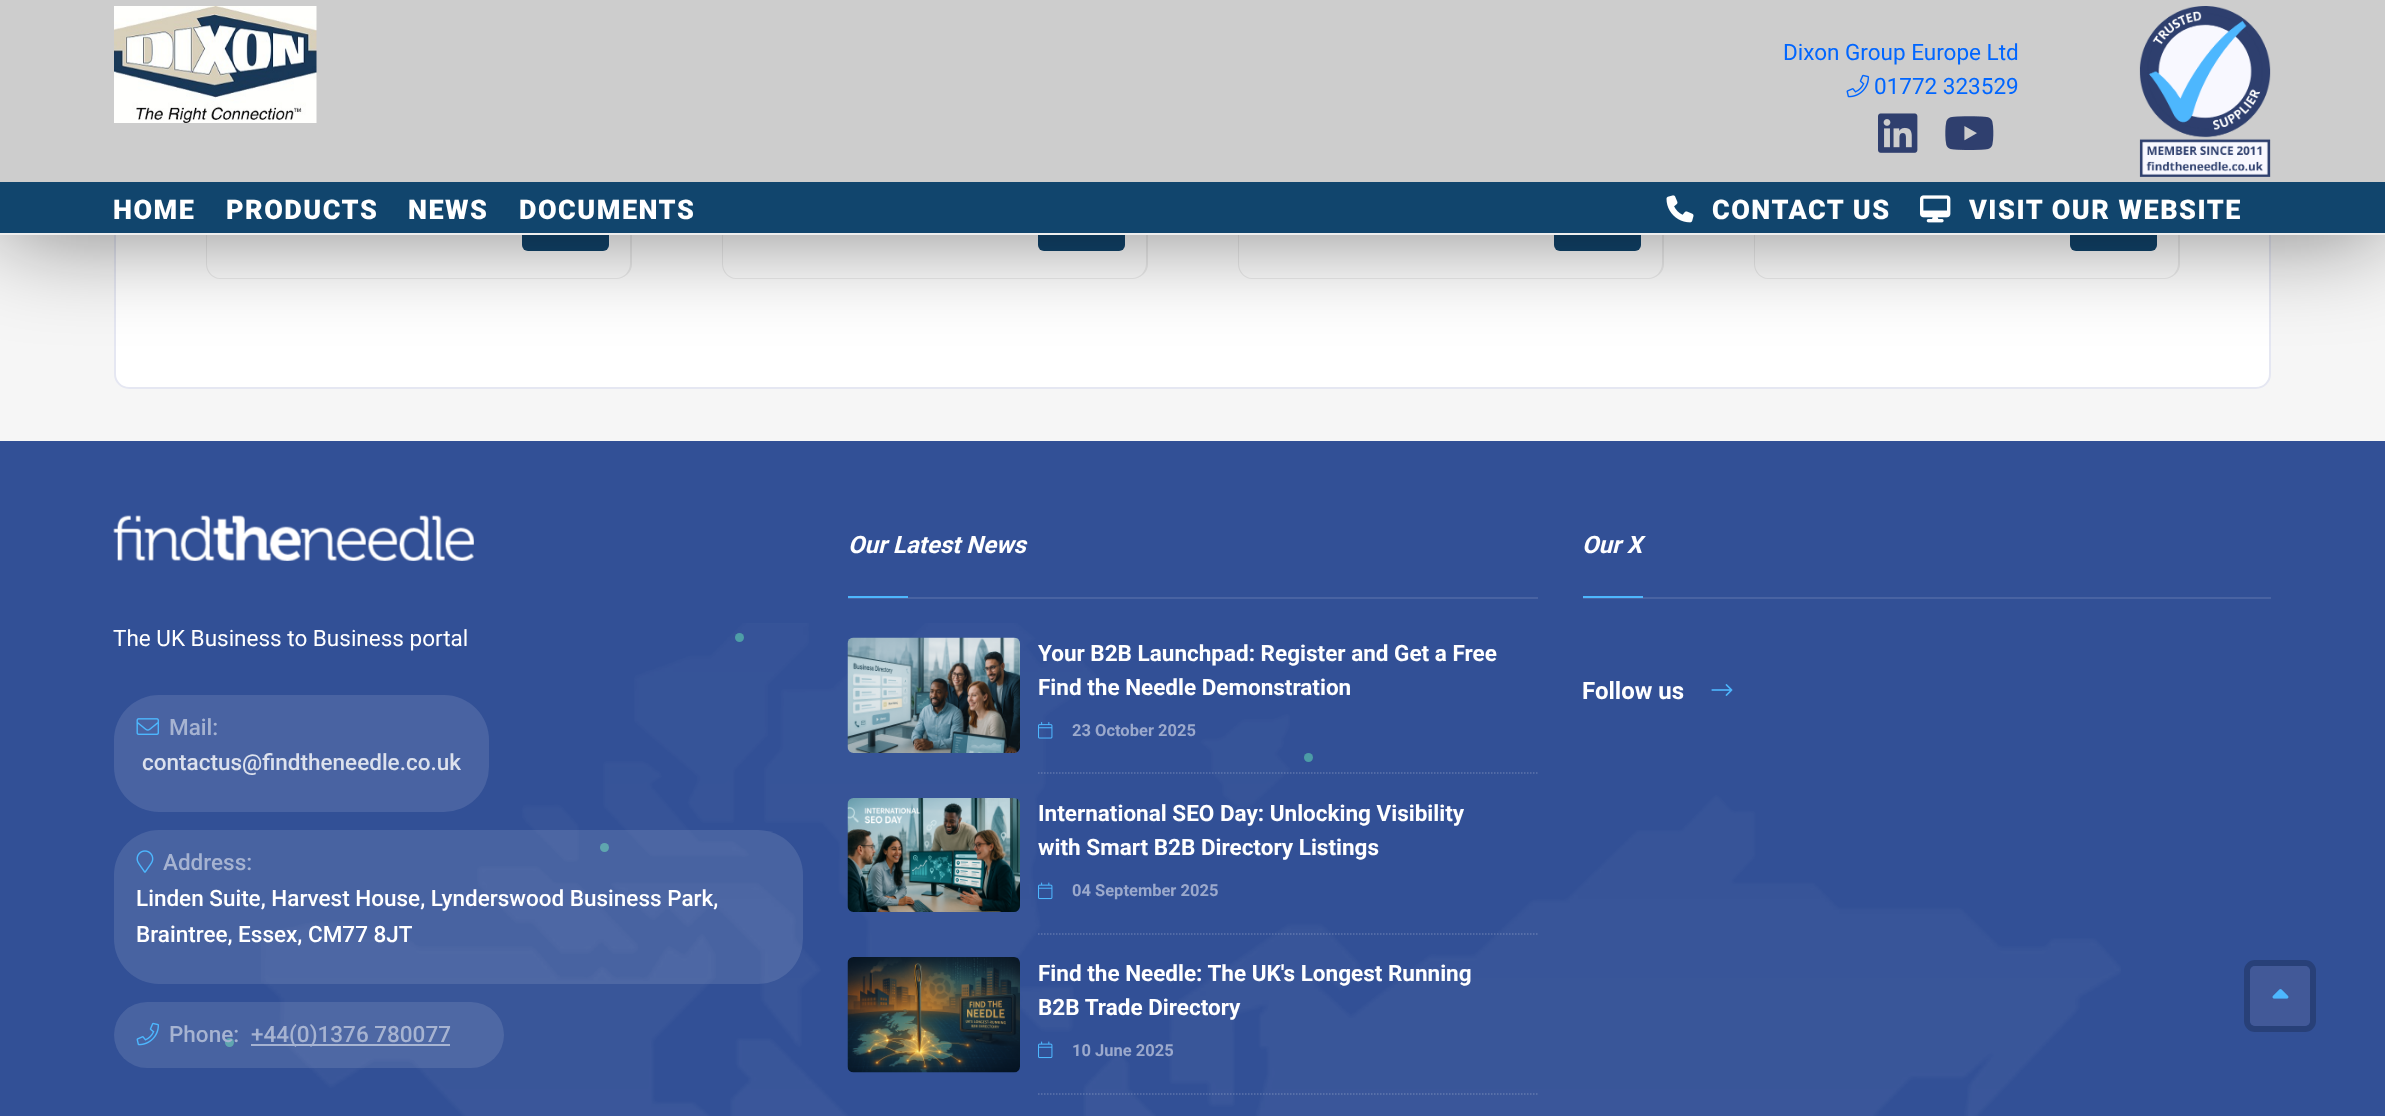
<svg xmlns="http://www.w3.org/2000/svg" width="2385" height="1116">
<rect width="100%" height="100%" fill="#f6f6f6"/>
<rect x="115" y="-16" width="2155" height="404" rx="14" fill="#fff" stroke="#e5e7f2" stroke-width="2"/>
<path d="M206 140h426v124c0 8-7 15-16 15h-396c-8 0-14-7-14-15zm1 0h423v124c0 7-6 14-14 14h-396c-7 0-13-7-13-14z" fill="#eee" fill-rule="evenodd"/>
<rect x="522" y="207" width="87" height="44" rx="6" fill="#11456d"/>
<path d="M722 140h426v124c0 8-7 15-16 15h-396c-8 0-14-7-14-15zm1 0h423v124c0 7-6 14-14 14h-396c-7 0-13-7-13-14z" fill="#eee" fill-rule="evenodd"/>
<rect x="1038" y="207" width="87" height="44" rx="6" fill="#11456d"/>
<path d="M1238 140h426v124c0 8-7 15-16 15h-396c-8 0-14-7-14-15zm1 0h423v124c0 7-6 14-14 14h-396c-7 0-13-7-13-14z" fill="#eee" fill-rule="evenodd"/>
<rect x="1554" y="207" width="87" height="44" rx="6" fill="#11456d"/>
<path d="M1754 140h426v124c0 8-7 15-16 15h-396c-8 0-14-7-14-15zm1 0h423v124c0 7-6 14-14 14h-396c-7 0-13-7-13-14z" fill="#eee" fill-rule="evenodd"/>
<rect x="2070" y="207" width="87" height="44" rx="6" fill="#11456d"/>
<rect width="2385" height="234" fill="#00000080" filter="blur(49px)"/>
<rect y="182" width="2385" height="51" fill="#11456d"/>
<rect y="233" width="2385" height="2" fill="#eee"/>
<rect width="2385" height="182" fill="#cdcdcd"/>
<image x="114" y="6" width="203" height="117" href="media/1.png"/>
<text x="1783" y="60" style="font-family:Roboto;font-size:22.5px;fill:#06f">Dixon Group Europe Ltd</text>
<image x="1846" y="74" width="24" height="24" href="media/2.png"/>
<text x="1874" y="94" style="font-family:Roboto;font-size:22.5px;fill:#06f">01772 323529</text>
<image x="1878" y="113" width="40" height="40" href="media/3.png"/>
<image x="1945" y="116" width="49" height="34" href="media/4.png"/>
<image x="2139" y="6" width="132" height="171" href="media/5.png"/>
<text x="113" y="219" style="font-family:Roboto;font-size:27px;font-weight:900;letter-spacing:1.5px;fill:#fff">HOME</text>
<text x="226" y="219" style="font-family:Roboto;font-size:27px;font-weight:900;letter-spacing:1.5px;fill:#fff">PRODUCTS</text>
<text x="408" y="219" style="font-family:Roboto;font-size:27px;font-weight:900;letter-spacing:1.5px;fill:#fff">NEWS</text>
<text x="519" y="219" style="font-family:Roboto;font-size:27px;font-weight:900;letter-spacing:1.5px;fill:#fff">DOCUMENTS</text>
<image x="1666" y="195" width="28" height="28" href="media/6.png"/>
<text x="1712" y="219" style="font-family:Roboto;font-size:27px;font-weight:900;letter-spacing:1.5px;fill:#fff">CONTACT US</text>
<image x="1920" y="195" width="31" height="28" href="media/7.png"/>
<text x="1969" y="219" style="font-family:Roboto;font-size:27px;font-weight:900;letter-spacing:1.5px;fill:#fff">VISIT OUR WEBSITE</text>
<rect y="441" width="2385" height="675" fill="#325096"/>
<image x="113" y="515" width="361" height="46" href="media/8.png"/>
<image x="261" y="623" width="1860" height="493" href="media/18.png"/>
<text x="113" y="646" style="font-family:Roboto;font-size:22.5px;fill:#fff">The UK Business to Business portal</text>
<rect x="114" y="695" width="375" height="117" rx="45" fill="#4963a2"/>
<image x="136" y="718" width="23" height="17" href="media/9.png"/>
<text x="169" y="735" style="font-family:Roboto;font-size:22.5px;font-weight:500;fill:#a6b3d1">Mail:</text>
<text x="142" y="770" style="font-family:Roboto;font-size:22.5px;font-weight:500;fill:#dce1ed">contactus@findtheneedle.co.uk</text>
<circle cx="604.5" cy="847.5" r="4.5" fill="#4c9ca6"/>
<rect x="114" y="830" width="689" height="154" rx="45" fill="#ffffff1c"/>
<image x="136" y="850" width="18" height="23" href="media/10.png"/>
<text x="163" y="870" style="font-family:Roboto;font-size:22.5px;font-weight:500;fill:#a6b3d1">Address:</text>
<text x="136" y="906" style="font-family:Roboto;font-size:22.5px;font-weight:500;fill:#fff">Linden Suite, Harvest House, Lynderswood Business Park,</text>
<text x="136" y="942" style="font-family:Roboto;font-size:22.5px;font-weight:500;fill:#fff">Braintree, Essex, CM77 8JT</text>
<circle cx="229.5" cy="1042.5" r="4.5" fill="#4c9ca6"/>
<rect x="114" y="1002" width="390" height="66" rx="33" fill="#ffffff1c"/>
<image x="136" y="1022" width="23" height="24" href="media/11.png"/>
<text x="169" y="1042" style="font-family:Roboto;font-size:22.5px;font-weight:500;fill:#a6b3d1">Phone:</text>
<rect x="251" y="1044" width="199" height="2" fill="#ffffff82"/>
<text x="251" y="1042" style="font-family:Roboto;font-size:22.5px;font-weight:500;fill:#a6b3d1">+44(0)1376 780077</text>
<rect x="848" y="597" width="690" height="2" fill="#4963a2"/>
<text x="848" y="553" style="font-family:Roboto;font-size:24px;font-weight:bold;font-style:italic;fill:#fff">Our Latest News</text>
<rect x="848" y="596" width="60" height="2" fill="#4db7fe"/>
<image x="847" y="637" width="173" height="116" href="media/12.png"/>
<text x="1038" y="661" style="font-family:Roboto;font-size:22.5px;font-weight:bold;fill:#fff">Your B2B Launchpad: Register and Get a Free</text>
<text x="1038" y="695" style="font-family:Roboto;font-size:22.5px;font-weight:bold;fill:#fff">Find the Needle Demonstration</text>
<image x="1038" y="722" width="15" height="17" href="media/13.png"/>
<text x="1072" y="736" style="font-family:Roboto;font-size:16.5px;font-weight:bold;fill:#9ba9cc">23 October 2025</text>
<path d="M1038 773h499.5" fill="none" stroke="#ffffff36" stroke-width="1.5" stroke-dasharray="1.5 1.5"/>
<image x="847" y="798" width="173" height="114" href="media/14.png"/>
<text x="1038" y="821" style="font-family:Roboto;font-size:22.5px;font-weight:bold;fill:#fff">International SEO Day: Unlocking Visibility</text>
<text x="1038" y="855" style="font-family:Roboto;font-size:22.5px;font-weight:bold;fill:#fff">with Smart B2B Directory Listings</text>
<image x="1038" y="882" width="15" height="18" href="media/15.png"/>
<text x="1072" y="896" style="font-family:Roboto;font-size:16.5px;font-weight:bold;fill:#9ba9cc">04 September 2025</text>
<path d="M1038 934h499.5" fill="none" stroke="#ffffff36" stroke-width="1.5" stroke-dasharray="1.5 1.5"/>
<image x="847" y="957" width="173" height="116" href="media/16.png"/>
<text x="1038" y="981" style="font-family:Roboto;font-size:22.5px;font-weight:bold;fill:#fff">Find the Needle: The UK's Longest Running</text>
<text x="1038" y="1015" style="font-family:Roboto;font-size:22.5px;font-weight:bold;fill:#fff">B2B Trade Directory</text>
<image x="1038" y="1041" width="15" height="18" href="media/15.png"/>
<text x="1072" y="1056" style="font-family:Roboto;font-size:16.5px;font-weight:bold;fill:#9ba9cc">10 June 2025</text>
<path d="M1038 1094h499.5" fill="none" stroke="#ffffff36" stroke-width="1.5" stroke-dasharray="1.5 1.5"/>
<rect x="1583" y="597" width="688" height="2" fill="#4963a2"/>
<text x="1582" y="553" style="font-family:Roboto;font-size:24px;font-weight:bold;font-style:italic;fill:#fff">Our X</text>
<rect x="1583" y="596" width="60" height="2" fill="#4db7fe"/>
<text x="1582" y="699" style="font-family:Roboto;font-size:24px;font-weight:bold;fill:#fff">Follow us</text>
<image x="1711" y="684" width="22" height="12" href="media/17.png"/>
<circle cx="739.5" cy="637.5" r="4.5" fill="#4e9ea7"/>
<circle cx="1308.5" cy="757.5" r="4.5" fill="#4c9ca6"/>
<rect x="2247" y="963" width="66" height="66" rx="8" fill="none" stroke="#284078" stroke-width="6"/>
<rect x="2250" y="966" width="60" height="60" rx="5" fill="#425998"/>
<image x="2272" y="989" width="17" height="10" href="media/19.png"/>
</svg>
